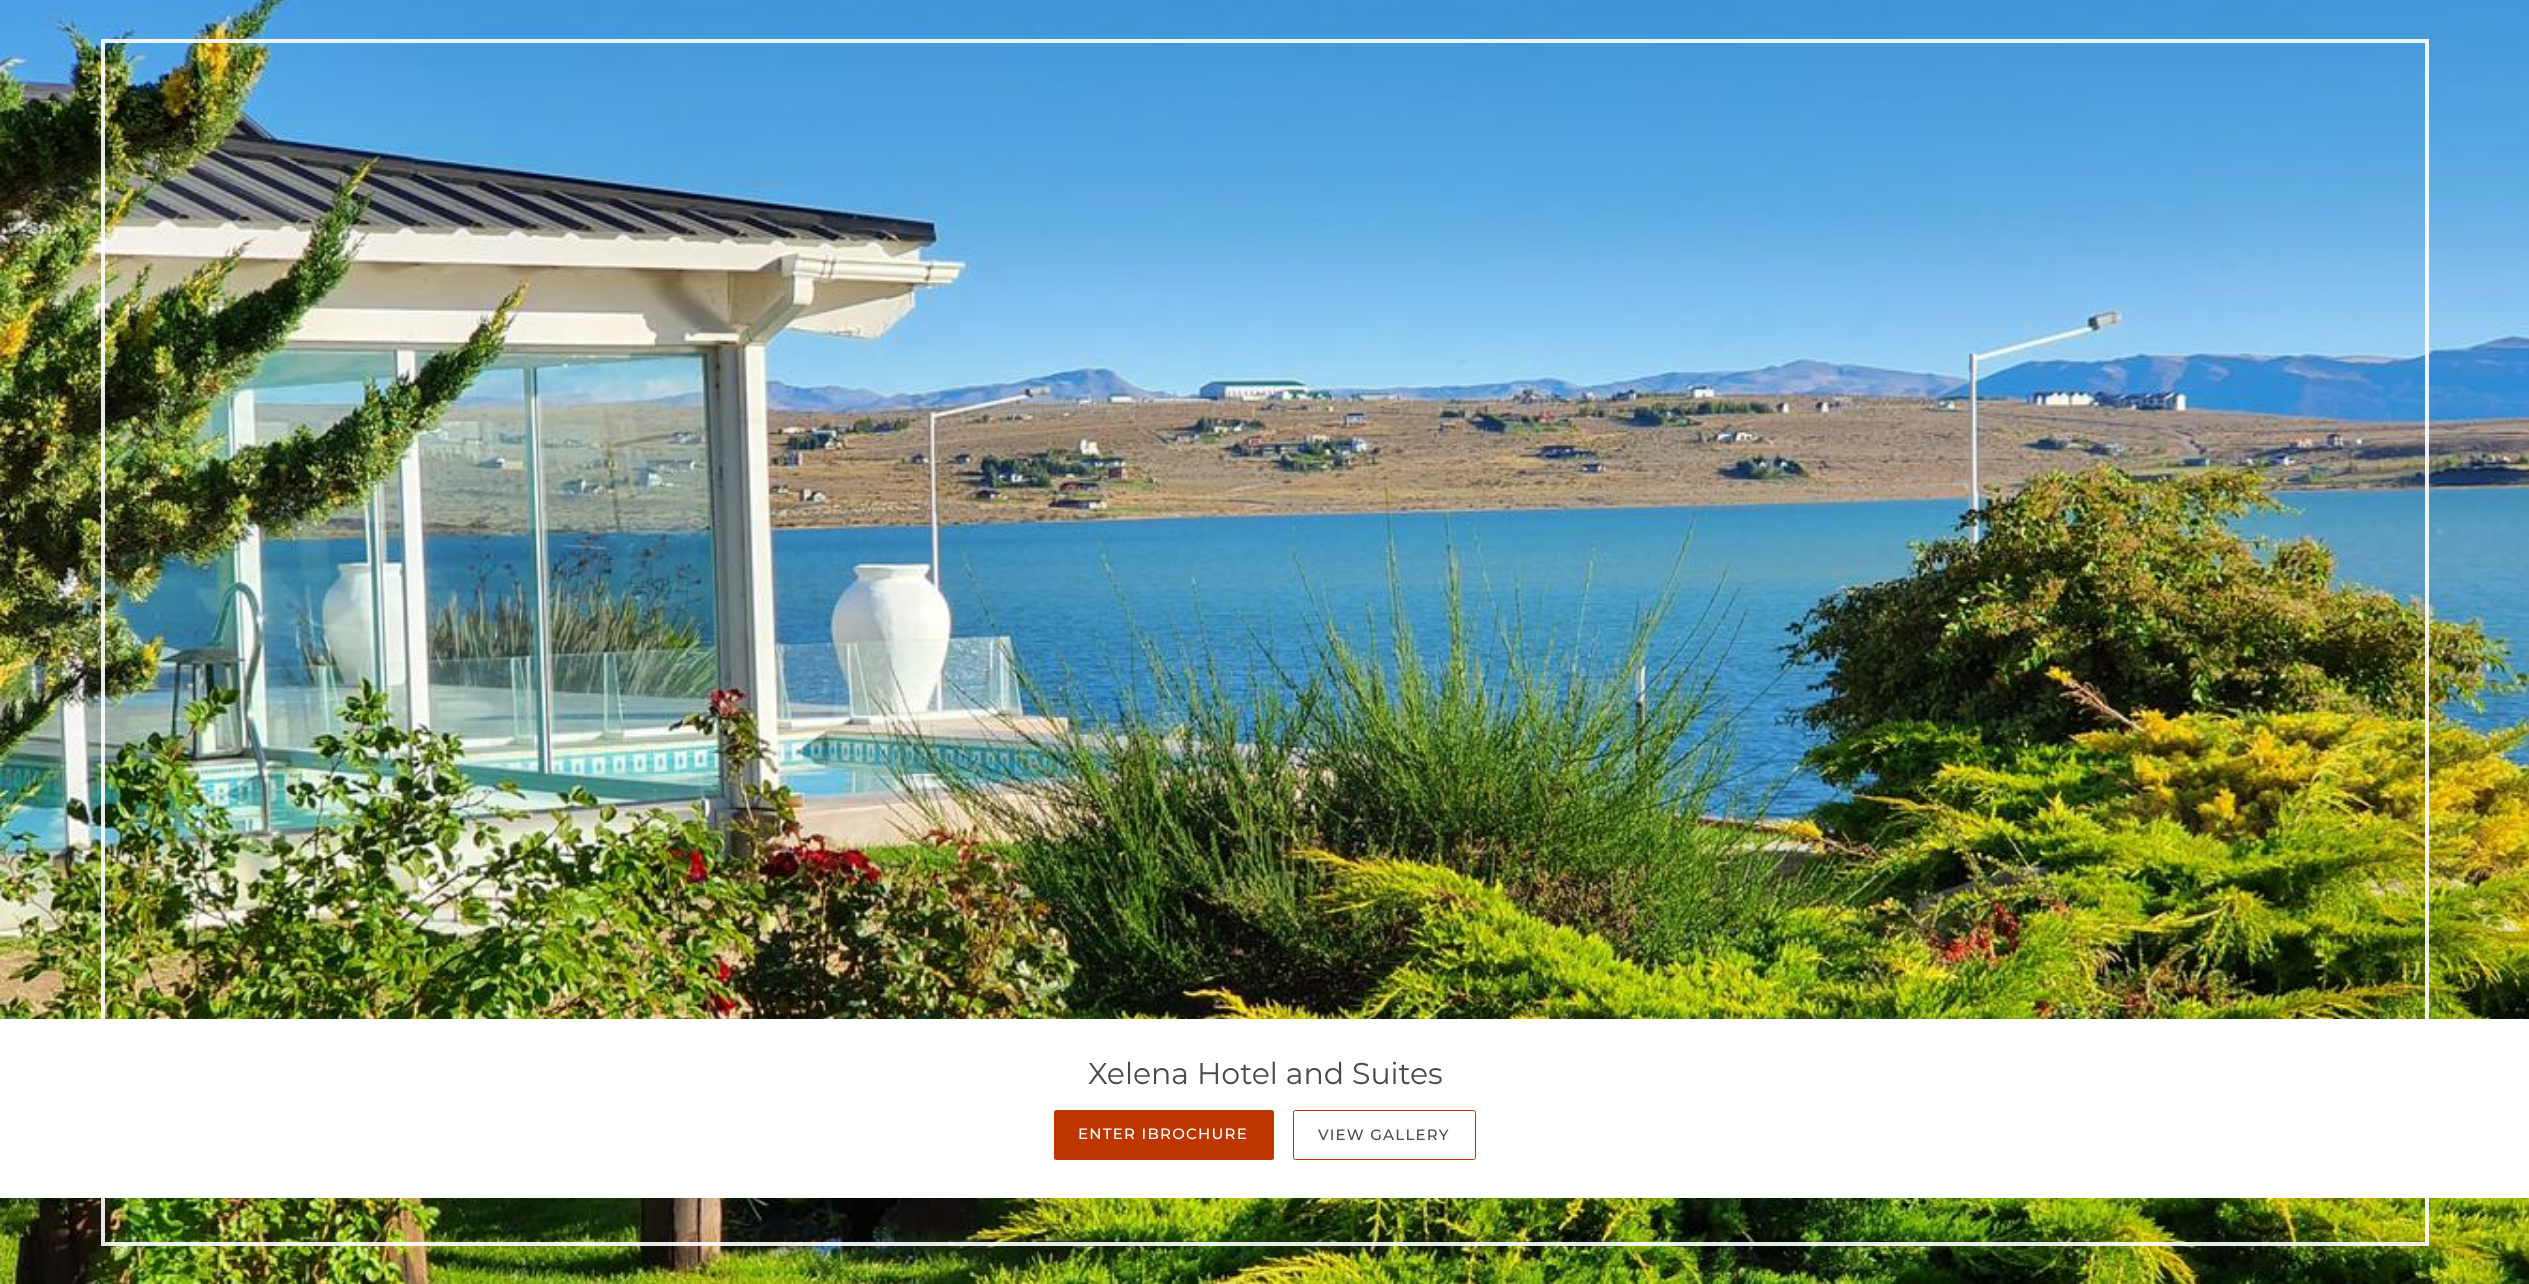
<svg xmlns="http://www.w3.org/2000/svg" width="2529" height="1284">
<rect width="100%" height="100%" fill="#fff"/>
<image x="0" y="0" width="2529" height="1284" href="media/1.png"/>
<rect x="103" y="41" width="2324" height="1203" fill="none" stroke="#ffffffe6" stroke-width="4"/>
<rect y="1019" width="2529" height="179" fill="#fff"/>
<text x="1088" y="1084" style="font-family:Montserrat;font-size:30px;fill:#4a4a4a">Xelena Hotel and Suites</text>
<rect x="1054" y="1110" width="220" height="50" rx="2.5" fill="#bd3600"/>
<text x="1078" y="1139" style="font-family:Montserrat;font-size:15px;font-weight:500;letter-spacing:1.25px;fill:#fff">ENTER IBROCHURE</text>
<rect x="1293.5" y="1110.5" width="182" height="49" rx="2" fill="none" stroke="#bd3600"/>
<text x="1318" y="1140" style="font-family:Montserrat;font-size:15px;font-weight:500;letter-spacing:1.25px;fill:#4a4a4a">VIEW GALLERY</text>
</svg>
